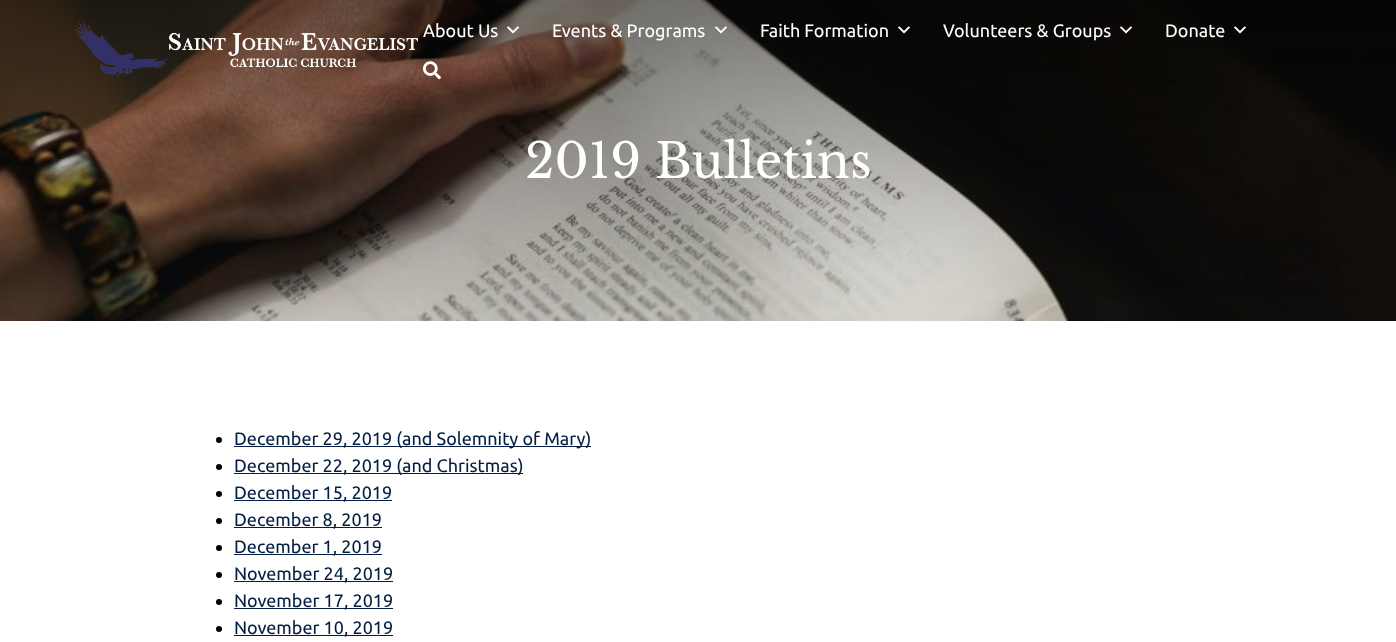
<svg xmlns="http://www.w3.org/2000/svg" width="1396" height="642">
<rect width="100%" height="100%" fill="#fff"/>
<image x="0" y="0" width="1396" height="321" href="media/8.png"/>
<image x="75" y="22" width="343" height="55" href="media/1.png"/>
<text x="423" y="37" style="font-family:Ubuntu;font-size:18px;fill:#fff">About Us</text>
<image x="506" y="26" width="14" height="8" href="media/2.png"/>
<text x="552" y="37" style="font-family:Ubuntu;font-size:18px;fill:#fff">Events &amp; Programs</text>
<image x="714" y="26" width="14" height="8" href="media/3.png"/>
<text x="760" y="37" style="font-family:Ubuntu;font-size:18px;fill:#fff">Faith Formation</text>
<image x="897" y="26" width="14" height="8" href="media/4.png"/>
<text x="943" y="37" style="font-family:Ubuntu;font-size:18px;fill:#fff">Volunteers &amp; Groups</text>
<image x="1119" y="26" width="14" height="8" href="media/5.png"/>
<text x="1165" y="37" style="font-family:Ubuntu;font-size:18px;fill:#fff">Donate</text>
<image x="1233" y="26" width="14" height="8" href="media/6.png"/>
<image x="423" y="61" width="18" height="19" href="media/7.png"/>
<text x="525" y="178" style="font-family:Libre Baskerville;font-size:48px;fill:#fff">2019 Bulletins</text>
<circle cx="219" cy="440" r="3" fill="#000"/>
<rect x="234" y="446" width="357" height="1" fill="#041e42"/>
<text x="234" y="445" style="font-family:Ubuntu;font-size:18px;fill:#041e42">December 29, 2019 (and Solemnity of Mary)</text>
<circle cx="219" cy="467" r="3" fill="#000"/>
<rect x="234" y="473" width="289" height="1" fill="#041e42"/>
<text x="234" y="472" style="font-family:Ubuntu;font-size:18px;fill:#041e42">December 22, 2019 (and Christmas)</text>
<circle cx="219" cy="494" r="3" fill="#000"/>
<rect x="234" y="500" width="158" height="1" fill="#041e42"/>
<text x="234" y="499" style="font-family:Ubuntu;font-size:18px;fill:#041e42">December 15, 2019</text>
<circle cx="219" cy="521" r="3" fill="#000"/>
<rect x="234" y="527" width="148" height="1" fill="#041e42"/>
<text x="234" y="526" style="font-family:Ubuntu;font-size:18px;fill:#041e42">December 8, 2019</text>
<circle cx="219" cy="548" r="3" fill="#000"/>
<rect x="234" y="554" width="148" height="1" fill="#041e42"/>
<text x="234" y="553" style="font-family:Ubuntu;font-size:18px;fill:#041e42">December 1, 2019</text>
<circle cx="219" cy="575" r="3" fill="#000"/>
<rect x="234" y="581" width="159" height="1" fill="#041e42"/>
<text x="234" y="580" style="font-family:Ubuntu;font-size:18px;fill:#041e42">November 24, 2019</text>
<circle cx="219" cy="602" r="3" fill="#000"/>
<rect x="234" y="608" width="159" height="1" fill="#041e42"/>
<text x="234" y="607" style="font-family:Ubuntu;font-size:18px;fill:#041e42">November 17, 2019</text>
<circle cx="219" cy="629" r="3" fill="#000"/>
<rect x="234" y="635" width="159" height="1" fill="#041e42"/>
<text x="234" y="634" style="font-family:Ubuntu;font-size:18px;fill:#041e42">November 10, 2019</text>
</svg>
